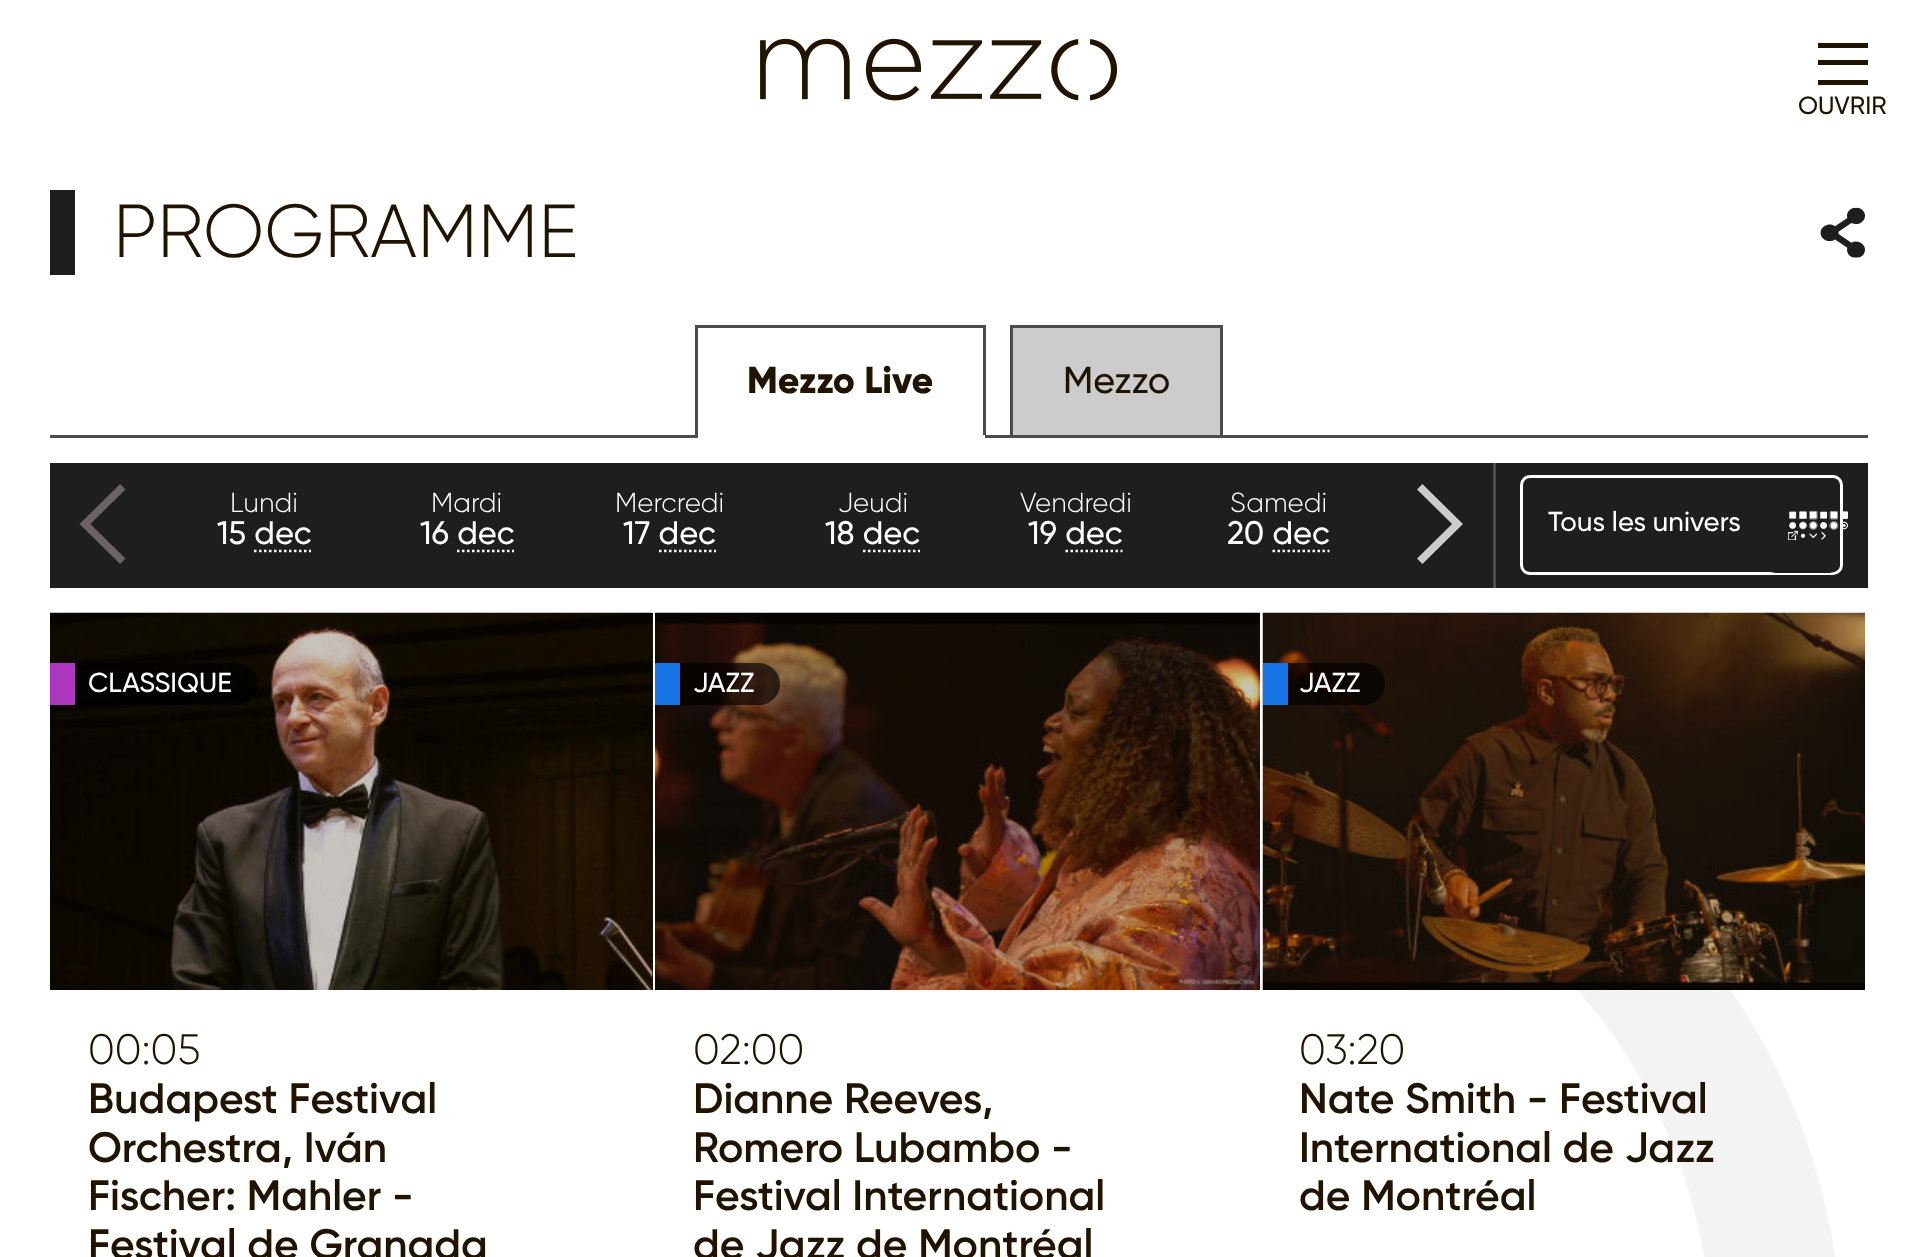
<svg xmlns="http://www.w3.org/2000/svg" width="1917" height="1257">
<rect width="100%" height="100%" fill="#fff"/>
<image x="760" y="38" width="358" height="63" href="media/1.png"/>
<rect x="1818" y="43" width="50" height="5" fill="#201300"/>
<rect x="1818" y="60" width="50" height="5" fill="#201300"/>
<rect x="1818" y="80" width="50" height="5" fill="#201300"/>
<text x="1798" y="114" style="font-family:Gilroy;font-size:25px;font-weight:500;fill:#201300">OUVRIR</text>
<rect x="50" y="190" width="25" height="85" fill="#1e1e1e"/>
<text x="113" y="257" style="font-family:Gilroy;font-size:75px;font-weight:300;fill:#201300">PROGRAMME</text>
<image x="1820" y="207" width="45" height="51" href="media/2.png"/>
<rect x="695" y="325" width="290" height="3" fill="#4c4c4c"/>
<rect x="50" y="435" width="1818" height="3" fill="#4c4c4c"/>
<rect x="983" y="325" width="3" height="113" fill="#4c4c4c"/>
<rect x="695" y="435" width="290" height="3" fill="#fff"/>
<rect x="695" y="325" width="3" height="113" fill="#4c4c4c"/>
<text x="747" y="393" style="font-family:Gilroy;font-size:37.5px;font-weight:800;fill:#201300">Mezzo Live</text>
<rect x="1011.5" y="326.5" width="210" height="110" fill="#ccc" stroke="#4c4c4c" stroke-width="3"/>
<text x="1063" y="393" style="font-family:Gilroy;font-size:37.5px;font-weight:500;fill:#201300">Mezzo</text>
<rect x="50" y="463" width="1818" height="125" fill="#1e1e1e"/>
<image x="79" y="484" width="47" height="80" href="media/3.png"/>
<image x="1417" y="484" width="46" height="80" href="media/4.png"/>
<text x="230" y="512" style="font-family:Gilroy;font-size:27.5px;font-weight:300;fill:#fff">Lundi</text>
<text x="217" y="544" style="font-family:Gilroy;font-size:32.5px;font-weight:500;fill:#fff">15 dec</text>
<path d="M254 551h57" fill="none" stroke="#fff" stroke-width="2.5" stroke-dasharray="2.5 2.5"/>
<text x="431" y="512" style="font-family:Gilroy;font-size:27.5px;font-weight:300;fill:#fff">Mardi</text>
<text x="420" y="544" style="font-family:Gilroy;font-size:32.5px;font-weight:500;fill:#fff">16 dec</text>
<path d="M457 551h57" fill="none" stroke="#fff" stroke-width="2.5" stroke-dasharray="2.5 2.5"/>
<text x="615" y="512" style="font-family:Gilroy;font-size:27.5px;font-weight:300;fill:#fff">Mercredi</text>
<text x="623" y="544" style="font-family:Gilroy;font-size:32.5px;font-weight:500;fill:#fff">17 dec</text>
<path d="M659 551h57" fill="none" stroke="#fff" stroke-width="2.5" stroke-dasharray="2.5 2.5"/>
<text x="838" y="512" style="font-family:Gilroy;font-size:27.5px;font-weight:300;fill:#fff">Jeudi</text>
<text x="825" y="544" style="font-family:Gilroy;font-size:32.5px;font-weight:500;fill:#fff">18 dec</text>
<path d="M863 551h57" fill="none" stroke="#fff" stroke-width="2.5" stroke-dasharray="2.5 2.5"/>
<text x="1020" y="512" style="font-family:Gilroy;font-size:27.5px;font-weight:300;fill:#fff">Vendredi</text>
<text x="1028" y="544" style="font-family:Gilroy;font-size:32.5px;font-weight:500;fill:#fff">19 dec</text>
<path d="M1065.5 551h57" fill="none" stroke="#fff" stroke-width="2.5" stroke-dasharray="2.5 2.5"/>
<text x="1230" y="512" style="font-family:Gilroy;font-size:27.5px;font-weight:300;fill:#fff">Samedi</text>
<text x="1227" y="544" style="font-family:Gilroy;font-size:32.5px;font-weight:500;fill:#fff">20 dec</text>
<path d="M1272.5 551h57" fill="none" stroke="#fff" stroke-width="2.5" stroke-dasharray="2.5 2.5"/>
<rect x="1493" y="463" width="3" height="125" fill="#4c4c4c"/>
<rect x="1521.5" y="476.5" width="320" height="97" rx="8.5" fill="none" stroke="#fff" stroke-width="3"/>
<text x="1548" y="531" style="font-family:Gilroy;font-size:27.5px;font-weight:500;fill:#fff">Tous les univers</text>
<rect x="1765" y="478" width="75" height="95" rx="10" fill="#1e1e1e"/>
<image x="1788" y="511" width="60" height="29" href="media/5.png"/>
<rect x="652" y="613" width="1" height="377" fill="#201300"/>
<image x="50" y="612" width="603" height="378" href="media/6.png"/>
<rect x="50" y="613" width="603" height="377" fill="#20130040"/>
<path d="M50 663h187c11.5 0 21 9.5 21 21c0 11.5-9.5 21-21 21h-187z" fill="#000000a6"/>
<rect x="50" y="663" width="25" height="42" fill="#ab37bf"/>
<text x="88" y="692" style="font-family:Gilroy;font-size:27.5px;font-weight:500;fill:#fff">CLASSIQUE</text>
<text x="88" y="1064" style="font-family:Gilroy;font-size:42.5px;font-weight:300;fill:#201300">00:05</text>
<text x="88" y="1113" style="font-family:Gilroy;font-size:42.5px;font-weight:600;fill:#201300">Budapest Festival</text>
<text x="88" y="1162" style="font-family:Gilroy;font-size:42.5px;font-weight:600;fill:#201300">Orchestra, Iván</text>
<text x="88" y="1210" style="font-family:Gilroy;font-size:42.5px;font-weight:600;fill:#201300">Fischer: Mahler -</text>
<text x="88" y="1259" style="font-family:Gilroy;font-size:42.5px;font-weight:600;fill:#201300">Festival de Granada</text>
<image x="655" y="612" width="605" height="378" href="media/7.png"/>
<path d="M655 663h104c11.5 0 21 9.5 21 21c0 11.5-9.5 21-21 21h-104z" fill="#000000a6"/>
<rect x="655" y="663" width="25" height="42" fill="#1774e5"/>
<text x="693" y="692" style="font-family:Gilroy;font-size:27.5px;font-weight:500;fill:#fff">JAZZ</text>
<text x="693" y="1064" style="font-family:Gilroy;font-size:42.5px;font-weight:300;fill:#201300">02:00</text>
<text x="693" y="1113" style="font-family:Gilroy;font-size:42.5px;font-weight:600;fill:#201300">Dianne Reeves,</text>
<text x="693" y="1162" style="font-family:Gilroy;font-size:42.5px;font-weight:600;fill:#201300">Romero Lubambo -</text>
<text x="693" y="1210" style="font-family:Gilroy;font-size:42.5px;font-weight:600;fill:#201300">Festival International</text>
<text x="693" y="1259" style="font-family:Gilroy;font-size:42.5px;font-weight:600;fill:#201300">de Jazz de Montréal</text>
<path d="M1272 712v113c254 36 441 259 441 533c0 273-182 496-441 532v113c335-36 571-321 571-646c0-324-238-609-571-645z" fill="#f3f3f3"/>
<image x="1262" y="612" width="603" height="378" href="media/8.png"/>
<path d="M1263 663h101c11.5 0 21 9.5 21 21c0 11.5-9.5 21-21 21h-101z" fill="#000000a6"/>
<rect x="1263" y="663" width="25" height="42" fill="#1774e5"/>
<text x="1299" y="692" style="font-family:Gilroy;font-size:27.5px;font-weight:500;fill:#fff">JAZZ</text>
<text x="1299" y="1064" style="font-family:Gilroy;font-size:42.5px;font-weight:300;fill:#201300">03:20</text>
<text x="1299" y="1113" style="font-family:Gilroy;font-size:42.5px;font-weight:600;fill:#201300">Nate Smith - Festival</text>
<text x="1299" y="1162" style="font-family:Gilroy;font-size:42.5px;font-weight:600;fill:#201300">International de Jazz</text>
<text x="1299" y="1210" style="font-family:Gilroy;font-size:42.5px;font-weight:600;fill:#201300">de Montréal</text>
</svg>
